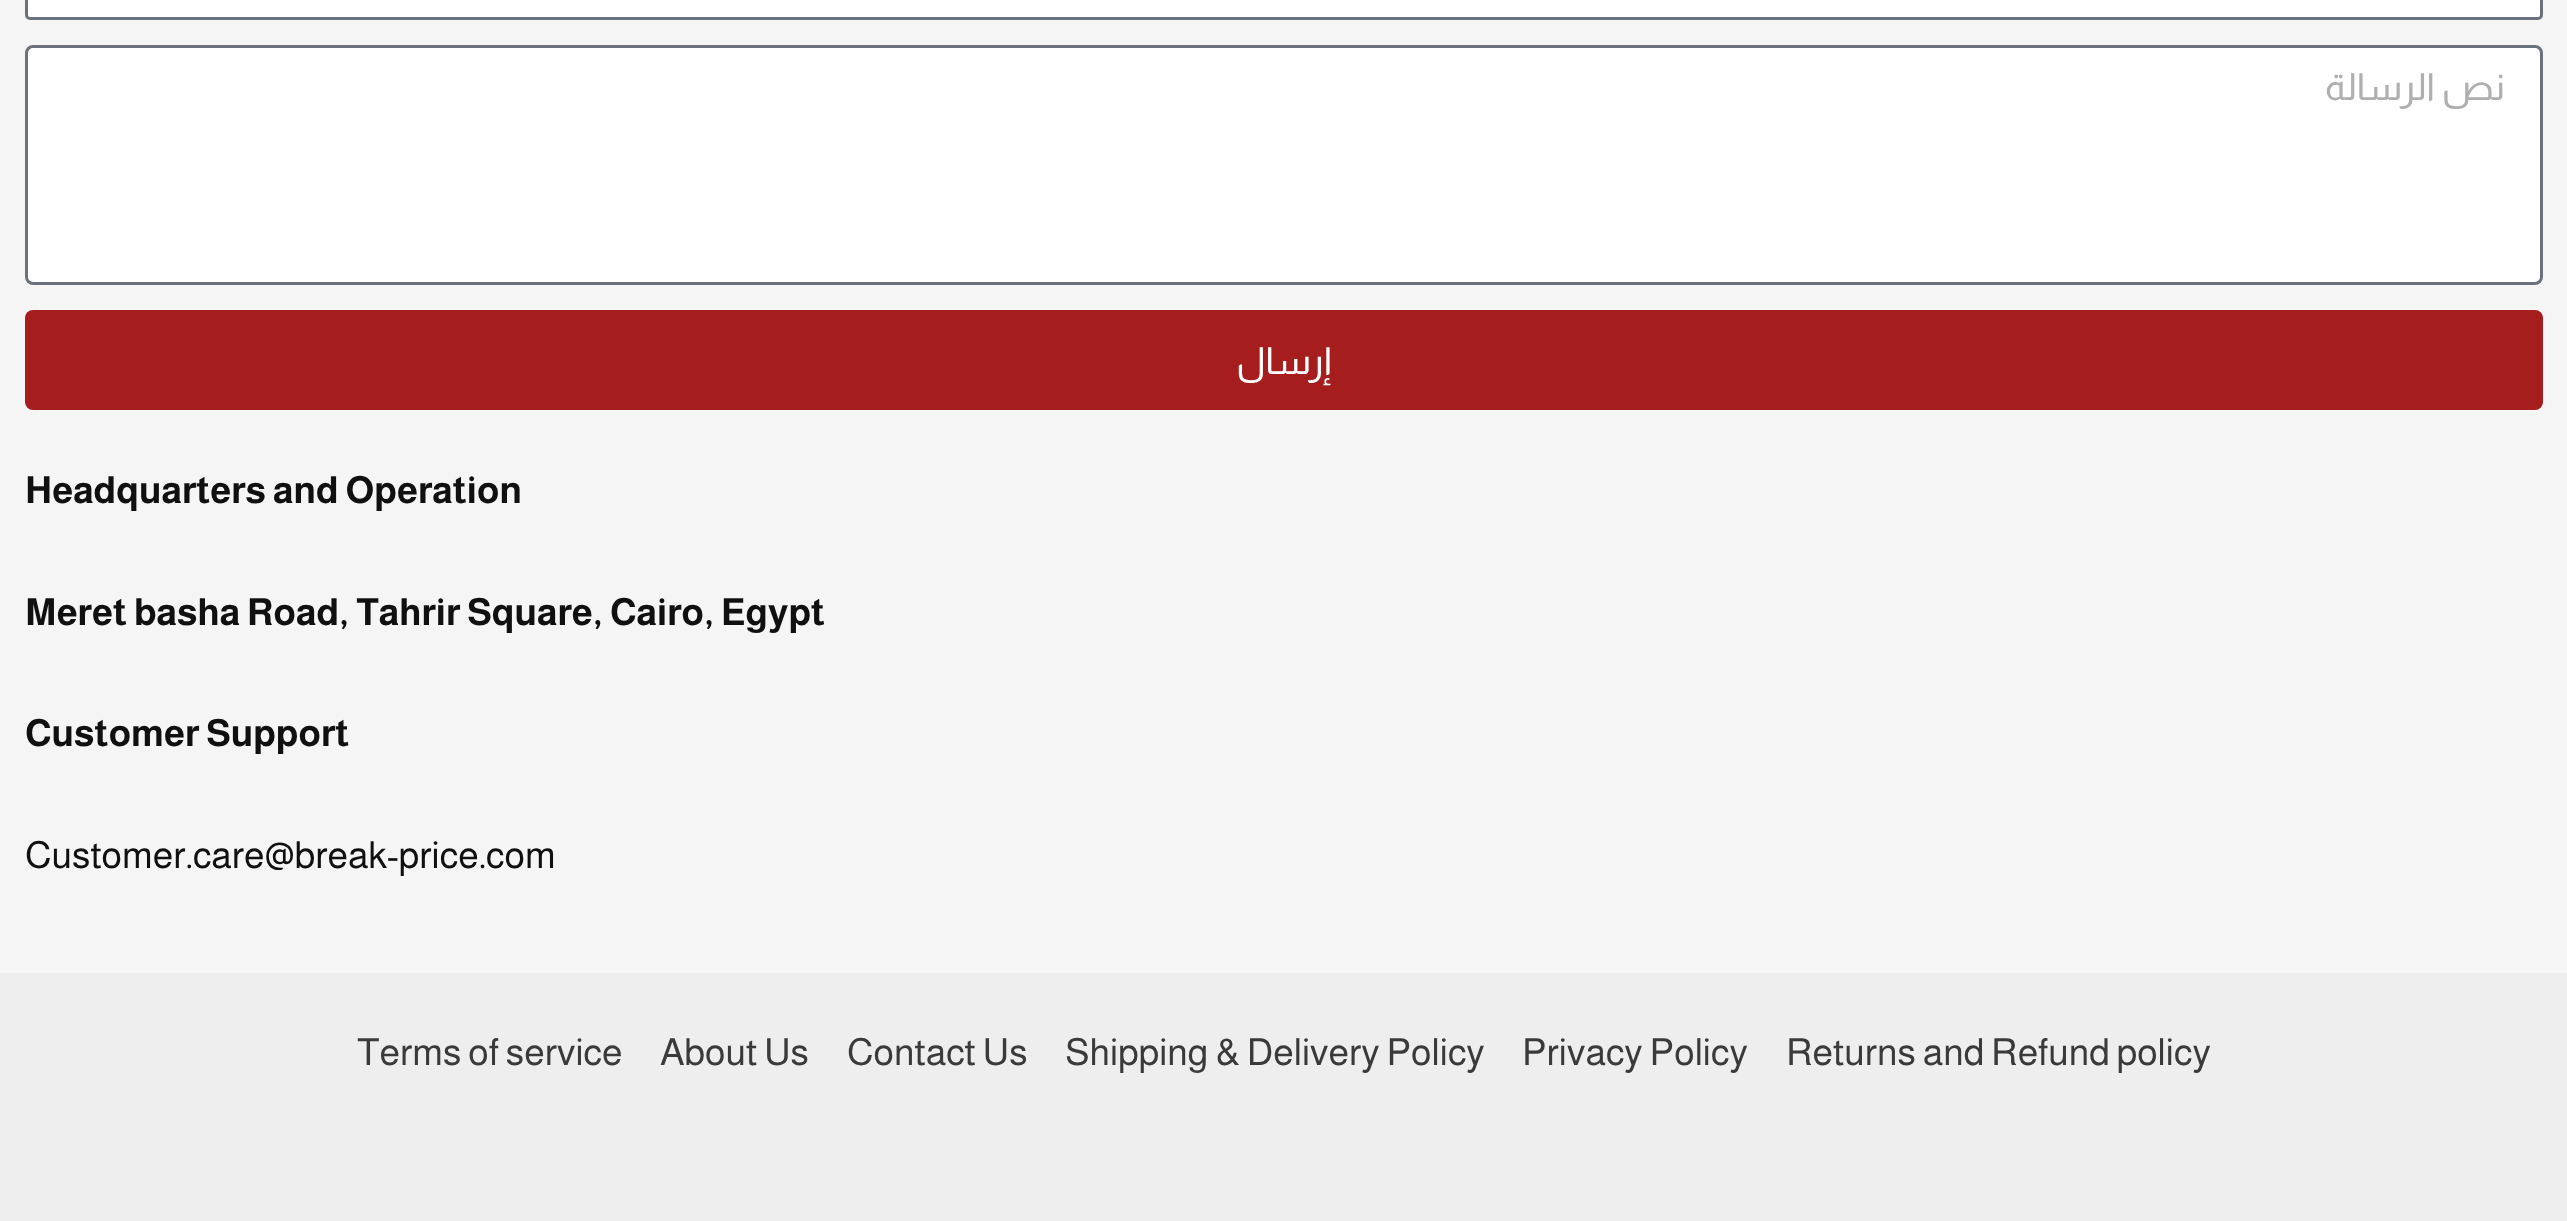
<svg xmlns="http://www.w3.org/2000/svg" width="2567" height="1221">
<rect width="100%" height="100%" fill="#f5f5f5"/>
<rect x="26.5" y="-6.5" width="2515" height="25" rx="3.5" fill="#fff" stroke="#69727d" stroke-width="3"/>
<rect x="26.5" y="46.5" width="2515" height="237" rx="6.5" fill="#fff" stroke="#69727d" stroke-width="3"/>
<text x="2505" y="100" style="font-family:Almarai;font-size:37.5px;direction:rtl;fill:#afafaf">نص الرسالة</text>
<rect x="25" y="310" width="2518" height="100" rx="8" fill="#a51d1d"/>
<text x="1331" y="374" style="font-family:Almarai;font-size:37.5px;direction:rtl;fill:#fff">إرسال</text>
<text x="25" y="503" style="font-family:Almarai;font-size:37.5px;font-weight:bold;fill:#101010">Headquarters and Operation</text>
<text x="25" y="625" style="font-family:Almarai;font-size:37.5px;font-weight:bold;fill:#101010">Meret basha Road, Tahrir Square, Cairo, Egypt</text>
<text x="25" y="746" style="font-family:Almarai;font-size:37.5px;font-weight:bold;fill:#101010">Customer Support</text>
<text x="25" y="868" style="font-family:Almarai;font-size:37.5px;fill:#101010">Customer.care@break-price.com</text>
<rect y="973" width="2567" height="248" fill="#eee"/>
<text x="357" y="1065" style="font-family:Almarai;font-size:37.5px;fill:#3a3a3a">Terms of service</text>
<text x="660" y="1065" style="font-family:Almarai;font-size:37.5px;fill:#3a3a3a">About Us</text>
<text x="847" y="1065" style="font-family:Almarai;font-size:37.5px;fill:#3a3a3a">Contact Us</text>
<text x="1065" y="1065" style="font-family:Almarai;font-size:37.5px;fill:#3a3a3a">Shipping &amp; Delivery Policy</text>
<text x="1522" y="1065" style="font-family:Almarai;font-size:37.5px;fill:#3a3a3a">Privacy Policy</text>
<text x="1786" y="1065" style="font-family:Almarai;font-size:37.5px;fill:#3a3a3a">Returns and Refund policy</text>
</svg>
